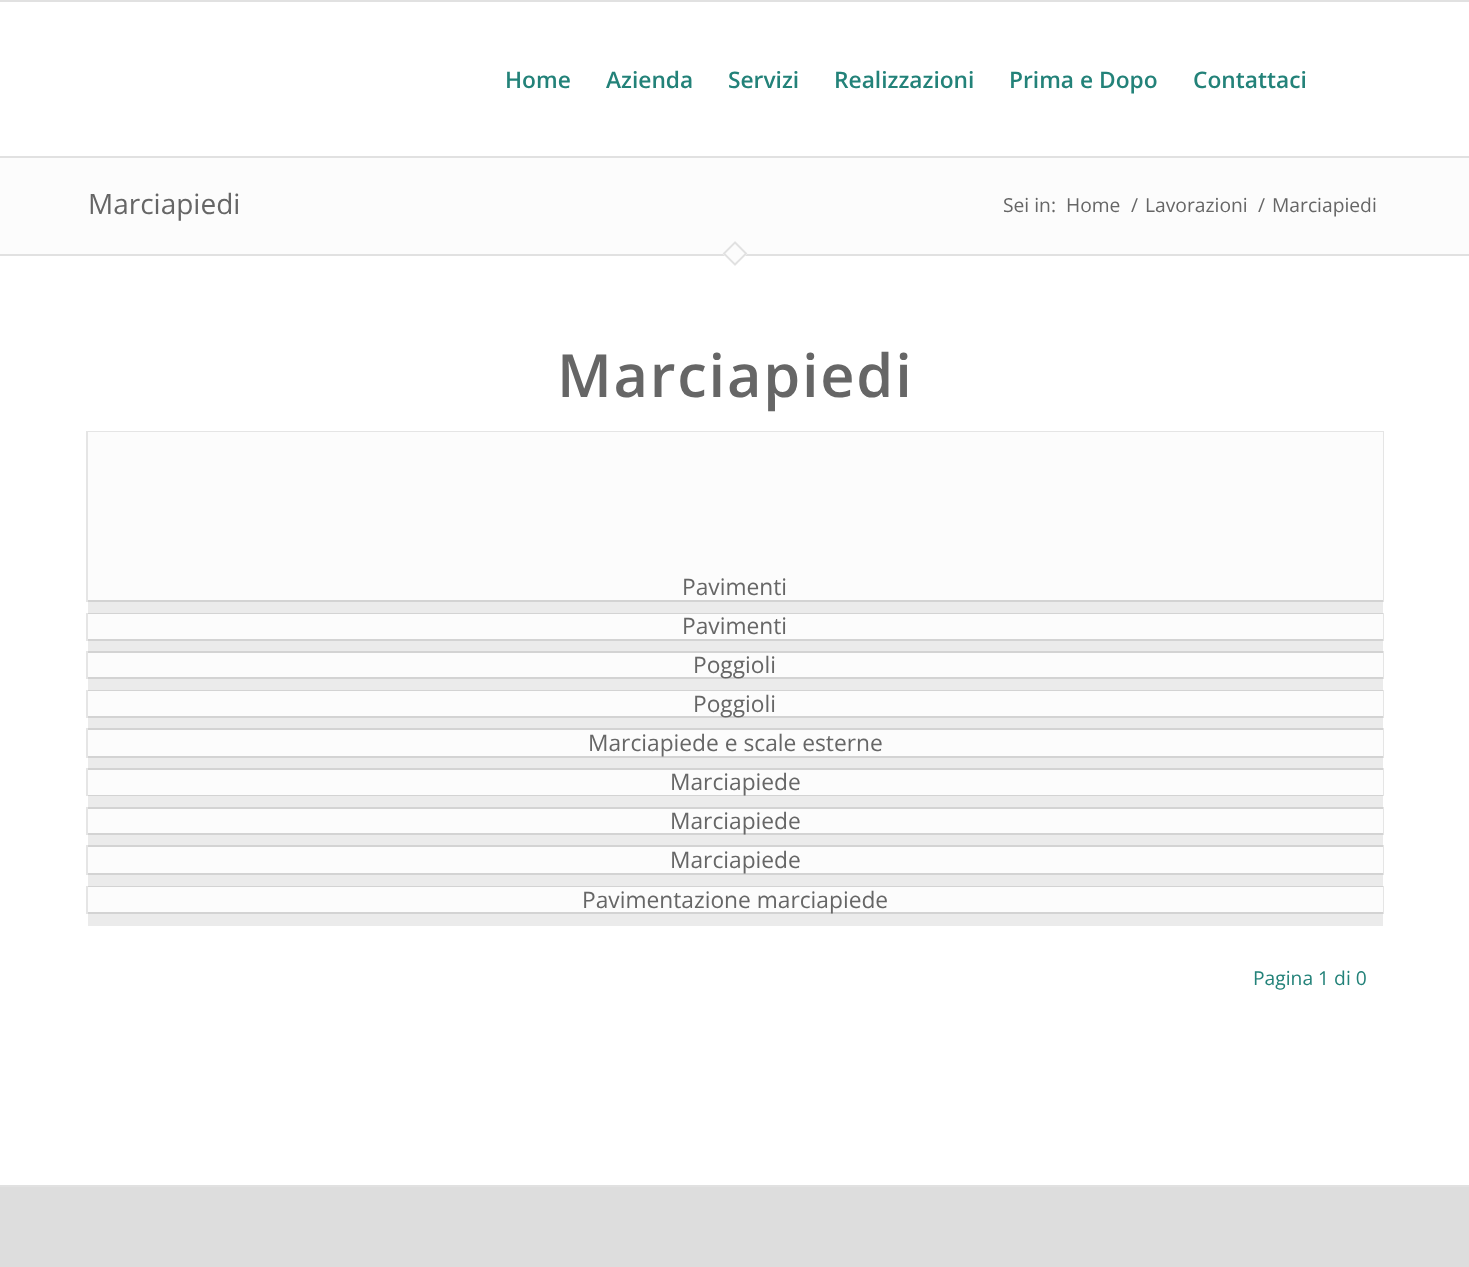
<svg xmlns="http://www.w3.org/2000/svg" width="1469" height="1267">
<rect width="100%" height="100%" fill="#fff"/>
<rect width="1469" height="2" fill="#e1e1e1"/>
<rect y="156" width="1469" height="2" fill="#e1e1e1"/>
<text x="505" y="88" style="font-family:Open Sans;font-size:22.75px;font-weight:600;fill:#238279">Home</text>
<text x="606" y="88" style="font-family:Open Sans;font-size:22.75px;font-weight:600;fill:#238279">Azienda</text>
<text x="728" y="88" style="font-family:Open Sans;font-size:22.75px;font-weight:600;fill:#238279">Servizi</text>
<text x="834" y="88" style="font-family:Open Sans;font-size:22.75px;font-weight:600;fill:#238279">Realizzazioni</text>
<text x="1009" y="88" style="font-family:Open Sans;font-size:22.75px;font-weight:600;fill:#238279">Prima e Dopo</text>
<text x="1193" y="88" style="font-family:Open Sans;font-size:22.75px;font-weight:600;fill:#238279">Contattaci</text>
<rect y="158" width="1469" height="96" fill="#fcfcfc"/>
<text x="88" y="214" style="font-family:Open Sans;font-size:28px;fill:#666">Marciapiedi</text>
<text x="1003" y="212" style="font-family:Open Sans;font-size:19.25px;fill:#666">Sei in:</text>
<text x="1066" y="212" style="font-family:Open Sans;font-size:19.25px;fill:#666">Home</text>
<text x="1131" y="212" style="font-family:Open Sans;font-size:19.25px;fill:#666">/</text>
<text x="1145" y="212" style="font-family:Open Sans;font-size:19.25px;fill:#666">Lavorazioni</text>
<text x="1258" y="212" style="font-family:Open Sans;font-size:19.25px;fill:#666">/</text>
<text x="1272" y="212" style="font-family:Open Sans;font-size:19.25px;fill:#666">Marciapiedi</text>
<rect y="254" width="1469" height="2" fill="#e1e1e1"/>
<text x="557" y="397" style="font-family:Open Sans;font-size:59.5px;font-weight:600;letter-spacing:1.75px;fill:#666">Marciapiedi</text>
<rect x="88" y="600" width="1295" height="326" fill="#ebebeb"/>
<rect x="87" y="432" width="1296" height="169" fill="none" stroke="#0000001a" stroke-width="2"/>
<rect x="88" y="432" width="1295" height="168" fill="#fcfcfc"/>
<path d="M735 242.5l11 11l-11 11l-11-11zm0 0l11 11l-11 11l-11-11zm0 0l11 11l-11 11l-11-11zm0 0l11 11l-11 11l-11-11z" fill="none" stroke="#e1e1e1" stroke-width="1.8"/>
<text x="682" y="595" style="font-family:Open Sans;font-size:22.75px;fill:#666">Pavimenti</text>
<rect x="87" y="614" width="1296" height="26" fill="none" stroke="#0000001a" stroke-width="2"/>
<rect x="88" y="614" width="1295" height="25" fill="#fcfcfc"/>
<text x="682" y="634" style="font-family:Open Sans;font-size:22.75px;fill:#666">Pavimenti</text>
<rect x="87" y="652" width="1296" height="26" fill="none" stroke="#0000001a" stroke-width="2"/>
<rect x="88" y="653" width="1295" height="24" fill="#fcfcfc"/>
<text x="693" y="673" style="font-family:Open Sans;font-size:22.75px;fill:#666">Poggioli</text>
<rect x="87" y="691" width="1296" height="26" fill="none" stroke="#0000001a" stroke-width="2"/>
<rect x="88" y="691" width="1295" height="25" fill="#fcfcfc"/>
<text x="693" y="712" style="font-family:Open Sans;font-size:22.75px;fill:#666">Poggioli</text>
<rect x="87" y="729" width="1296" height="28" fill="none" stroke="#0000001a" stroke-width="2"/>
<rect x="88" y="730" width="1295" height="26" fill="#fcfcfc"/>
<text x="588" y="751" style="font-family:Open Sans;font-size:22.75px;fill:#666">Marciapiede e scale esterne</text>
<rect x="87" y="769" width="1296" height="26" fill="none" stroke="#0000001a" stroke-width="2"/>
<rect x="88" y="770" width="1295" height="25" fill="#fcfcfc"/>
<text x="670" y="790" style="font-family:Open Sans;font-size:22.75px;fill:#666">Marciapiede</text>
<rect x="87" y="808" width="1296" height="26" fill="none" stroke="#0000001a" stroke-width="2"/>
<rect x="88" y="809" width="1295" height="24" fill="#fcfcfc"/>
<text x="670" y="829" style="font-family:Open Sans;font-size:22.75px;fill:#666">Marciapiede</text>
<rect x="87" y="846" width="1296" height="28" fill="none" stroke="#0000001a" stroke-width="2"/>
<rect x="88" y="847" width="1295" height="26" fill="#fcfcfc"/>
<text x="670" y="868" style="font-family:Open Sans;font-size:22.75px;fill:#666">Marciapiede</text>
<rect x="87" y="887" width="1296" height="26" fill="none" stroke="#0000001a" stroke-width="2"/>
<rect x="88" y="887" width="1295" height="25" fill="#fcfcfc"/>
<path d="M735 241l12.5 12.5l-12.5 12.5l-12.5-12.5z" fill="#fcfcfc"/>
<path d="M735 242.5l11 11l-11 11l-11-11z" fill="none" stroke="#e1e1e1" stroke-width="1.8"/>
<text x="582" y="908" style="font-family:Open Sans;font-size:22.75px;fill:#666">Pavimentazione marciapiede</text>
<text x="1253" y="985" style="font-family:Open Sans;font-size:19.25px;fill:#238279">Pagina 1 di 0</text>
<rect y="1187" width="1469" height="80" fill="#ddd"/>
<rect y="1185" width="1469" height="2" fill="#e1e1e1"/>
</svg>
